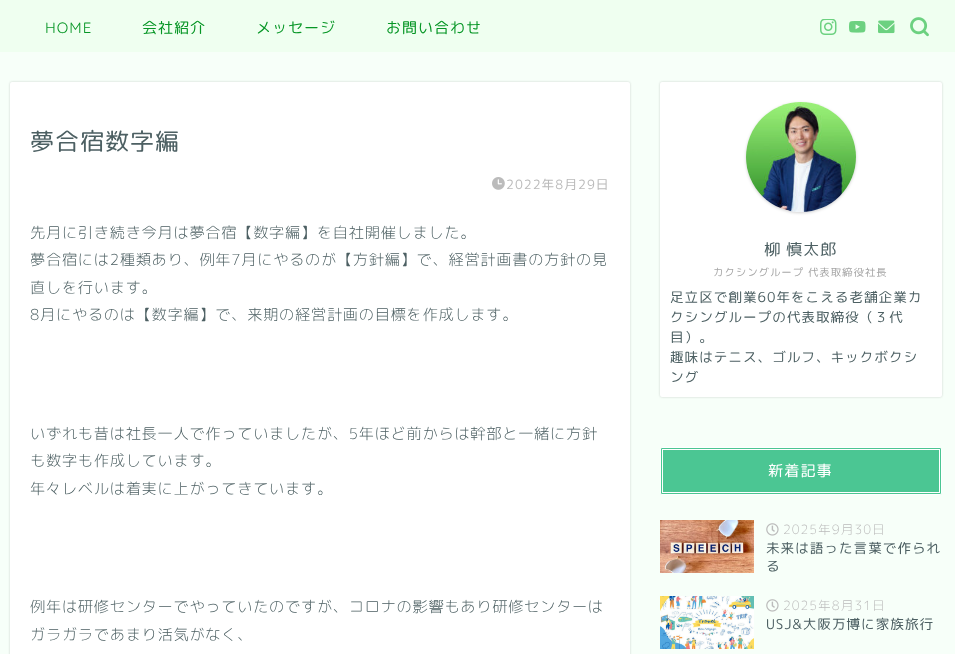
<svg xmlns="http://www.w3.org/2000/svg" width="955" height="654">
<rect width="100%" height="100%" fill="#f7fff9"/>
<rect width="955" height="52" fill="#effff0"/>
<text x="45" y="33" style="font-family:Quicksand;font-size:15px;font-weight:300;letter-spacing:1px;fill:#069625">HOME</text>
<text x="142" y="33" style="font-family:'Rounded Mplus 1c';font-size:15px;letter-spacing:1px;fill:#069625">会社紹介</text>
<text x="256" y="33" style="font-family:'Rounded Mplus 1c';font-size:15px;letter-spacing:1px;fill:#069625">メッセージ</text>
<text x="386" y="33" style="font-family:'Rounded Mplus 1c';font-size:15px;letter-spacing:1px;fill:#069625">お問い合わせ</text>
<image x="820" y="19" width="17" height="16" href="media/1.png"/>
<image x="849" y="21" width="17" height="12" href="media/2.png"/>
<image x="878" y="20" width="17" height="14" href="media/3.png"/>
<image x="910" y="17" width="19" height="20" href="media/4.png"/>
<rect x="10" y="82" width="620" height="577" rx="2" fill="#0000002e" filter="blur(1px)"/>
<rect x="10" y="82" width="620" height="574" rx="2" fill="#fff"/>
<text x="30" y="150" style="font-family:'Rounded Mplus 1c';font-size:24px;letter-spacing:1px;fill:#4d6063">夢合宿数字編</text>
<image x="492" y="177" width="13" height="13" href="media/5.png"/>
<text x="506" y="189" style="font-family:'Rounded Mplus 1c';font-size:12.75px;letter-spacing:1px;fill:#bbb">2022年8月29日</text>
<text x="30" y="238" style="font-family:'Rounded Mplus 1c';font-size:15.2px;font-weight:300;letter-spacing:0.75px;fill:#4d6063">先月に引き続き今月は夢合宿【数字編】を自社開催しました。</text>
<text x="30" y="265" style="font-family:'Rounded Mplus 1c';font-size:15.2px;font-weight:300;letter-spacing:0.75px;fill:#4d6063">夢合宿には2種類あり、例年7月にやるのが【方針編】で、経営計画書の方針の見</text>
<text x="30" y="293" style="font-family:'Rounded Mplus 1c';font-size:15.2px;font-weight:300;letter-spacing:0.75px;fill:#4d6063">直しを行います。</text>
<text x="30" y="320" style="font-family:'Rounded Mplus 1c';font-size:15.2px;font-weight:300;letter-spacing:0.75px;fill:#4d6063">8月にやるのは【数字編】で、来期の経営計画の目標を作成します。</text>
<text x="30" y="439" style="font-family:'Rounded Mplus 1c';font-size:15.2px;font-weight:300;letter-spacing:0.75px;fill:#4d6063">いずれも昔は社長一人で作っていましたが、5年ほど前からは幹部と一緒に方針</text>
<text x="30" y="466" style="font-family:'Rounded Mplus 1c';font-size:15.2px;font-weight:300;letter-spacing:0.75px;fill:#4d6063">も数字も作成しています。</text>
<text x="30" y="494" style="font-family:'Rounded Mplus 1c';font-size:15.2px;font-weight:300;letter-spacing:0.75px;fill:#4d6063">年々レベルは着実に上がってきています。</text>
<text x="30" y="612" style="font-family:'Rounded Mplus 1c';font-size:15.2px;font-weight:300;letter-spacing:0.75px;fill:#4d6063">例年は研修センターでやっていたのですが、コロナの影響もあり研修センターは</text>
<text x="30" y="640" style="font-family:'Rounded Mplus 1c';font-size:15.2px;font-weight:300;letter-spacing:0.75px;fill:#4d6063">ガラガラであまり活気がなく、</text>
<rect x="660" y="82" width="282" height="315" rx="2" fill="#0000002e" filter="blur(1px)"/>
<rect x="660" y="82" width="282" height="315" rx="2" fill="#fff"/>
<rect x="746" y="103" width="110" height="110" rx="55" fill="#0000002e" filter="blur(1.5px)"/>
<circle cx="801" cy="157" r="55" fill="#fff"/>
<image x="746" y="102" width="110" height="110" href="media/6.png"/>
<text x="764" y="255" style="font-family:'Rounded Mplus 1c';font-size:16px;letter-spacing:1px;fill:#4d6063">柳 慎太郎</text>
<text x="713" y="276" style="font-family:'Rounded Mplus 1c';font-size:10.4px;letter-spacing:1px;fill:#a6a6a6">カクシングループ 代表取締役社長</text>
<text x="670" y="302" style="font-family:'Rounded Mplus 1c';font-size:13.6px;letter-spacing:1px;fill:#4d6063">足立区で創業60年をこえる老舗企業カ</text>
<text x="670" y="322" style="font-family:'Rounded Mplus 1c';font-size:13.6px;letter-spacing:1px;fill:#4d6063">クシングループの代表取締役（３代</text>
<text x="670" y="342" style="font-family:'Rounded Mplus 1c';font-size:13.6px;letter-spacing:1px;fill:#4d6063">目）。</text>
<text x="670" y="362" style="font-family:'Rounded Mplus 1c';font-size:13.6px;letter-spacing:1px;fill:#4d6063">趣味はテニス、ゴルフ、キックボクシ</text>
<text x="670" y="382" style="font-family:'Rounded Mplus 1c';font-size:13.6px;letter-spacing:1px;fill:#4d6063">ング</text>
<rect x="660.5" y="447.5" width="281" height="47" rx="1.5" fill="#4bc693" stroke="#fff"/>
<rect x="662.5" y="449.5" width="277" height="43" fill="none" stroke="#fff"/>
<text x="768" y="476" style="font-family:'Rounded Mplus 1c';font-size:15.2px;letter-spacing:1px;fill:#fff">新着記事</text>
<image x="660" y="520" width="94" height="53" href="media/7.png"/>
<image x="766" y="523" width="13" height="13" href="media/8.png"/>
<text x="783" y="534" style="font-family:'Rounded Mplus 1c';font-size:12.75px;font-weight:300;letter-spacing:1px;fill:#bbb">2025年9月30日</text>
<text x="766" y="553" style="font-family:'Rounded Mplus 1c';font-size:13.6px;letter-spacing:1px;fill:#4d6063">未来は語った言葉で作られ</text>
<text x="766" y="571" style="font-family:'Rounded Mplus 1c';font-size:13.6px;letter-spacing:1px;fill:#4d6063">る</text>
<image x="660" y="596" width="94" height="53" href="media/9.png"/>
<image x="766" y="599" width="13" height="13" href="media/8.png"/>
<text x="783" y="610" style="font-family:'Rounded Mplus 1c';font-size:12.75px;font-weight:300;letter-spacing:1px;fill:#bbb">2025年8月31日</text>
<text x="766" y="629" style="font-family:'Rounded Mplus 1c';font-size:13.6px;letter-spacing:1px;fill:#4d6063">USJ&amp;大阪万博に家族旅行</text>
</svg>
